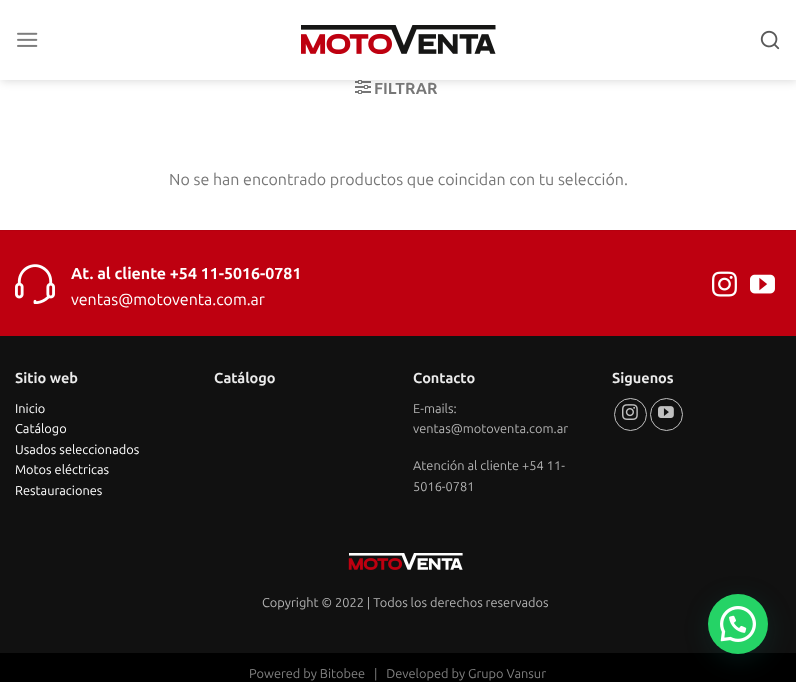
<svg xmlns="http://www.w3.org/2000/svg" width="796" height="682">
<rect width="100%" height="100%" fill="#fff"/>
<image x="355" y="80" width="16" height="14" href="media/4.png"/>
<rect x="1" y="1" width="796" height="80" fill="#00000026" filter="blur(5px)"/>
<rect width="796" height="80" fill="#fff"/>
<image x="17" y="32" width="21" height="15" href="media/1.png"/>
<image x="301" y="25" width="195" height="29" href="media/2.png"/>
<image x="760" y="30" width="20" height="20" href="media/3.png"/>
<text x="374" y="94" style="font-family:Ubuntu;font-size:16px;font-weight:bold;fill:#777">FILTRAR</text>
<text x="169" y="185" style="font-family:Ubuntu;font-size:16px;fill:#777">No se han encontrado productos que coincidan con tu selección.</text>
<rect y="231" width="796" height="105" fill="#be0010"/>
<rect y="230" width="796" height="1" fill="#b5000f"/>
<image x="15" y="264" width="40" height="40" href="media/5.png"/>
<text x="71" y="279" style="font-family:Ubuntu;font-size:16px;font-weight:bold;fill:#fff">At. al cliente +54 11-5016-0781</text>
<text x="71" y="305" style="font-family:Ubuntu;font-size:16px;fill:#fff">ventas@motoventa.com.ar</text>
<image x="712" y="271" width="25" height="26" href="media/6.png"/>
<image x="750" y="274" width="25" height="20" href="media/7.png"/>
<rect y="336" width="796" height="317" fill="#111"/>
<text x="15" y="383" style="font-family:Ubuntu;font-size:14.5px;font-weight:bold;fill:#ebebeb">Sitio web</text>
<text x="15" y="413" style="font-family:Ubuntu;font-size:12.8px;fill:#fff">Inicio</text>
<text x="15" y="433" style="font-family:Ubuntu;font-size:12.8px;fill:#fff">Catálogo</text>
<text x="15" y="454" style="font-family:Ubuntu;font-size:12.8px;fill:#fff">Usados seleccionados</text>
<text x="15" y="474" style="font-family:Ubuntu;font-size:12.8px;fill:#fff">Motos eléctricas</text>
<text x="15" y="495" style="font-family:Ubuntu;font-size:12.8px;fill:#fff">Restauraciones</text>
<text x="214" y="383" style="font-family:Ubuntu;font-size:14.5px;font-weight:bold;fill:#ebebeb">Catálogo</text>
<text x="413" y="383" style="font-family:Ubuntu;font-size:14.5px;font-weight:bold;fill:#ebebeb">Contacto</text>
<text x="413" y="413" style="font-family:Ubuntu;font-size:12.8px;fill:#b3b3b3">E-mails:</text>
<text x="413" y="433" style="font-family:Ubuntu;font-size:12.8px;fill:#b3b3b3">ventas@motoventa.com.ar</text>
<text x="413" y="470" style="font-family:Ubuntu;font-size:12.8px;fill:#b3b3b3">Atención al cliente +54 11-</text>
<text x="413" y="491" style="font-family:Ubuntu;font-size:12.8px;fill:#b3b3b3">5016-0781</text>
<text x="612" y="383" style="font-family:Ubuntu;font-size:14.5px;font-weight:bold;fill:#ebebeb">Siguenos</text>
<circle cx="630.5" cy="414.5" r="16" fill="none" stroke="#c0c0c0"/>
<image x="622" y="404" width="16" height="16" href="media/8.png"/>
<circle cx="666.5" cy="414.5" r="16" fill="none" stroke="#c0c0c0"/>
<image x="658" y="406" width="16" height="12" href="media/9.png"/>
<image x="348" y="553" width="115" height="17" href="media/10.png"/>
<text x="262" y="607" style="font-family:Ubuntu;font-size:12.8px;fill:#b3b3b3">Copyright © 2022 | Todos los derechos reservados</text>
<rect y="653" width="796" height="29" fill="#000"/>
<text x="249" y="678" style="font-family:Ubuntu;font-size:12.8px;fill:#808080">Powered by Bitobee</text>
<text x="374" y="678" style="font-family:Ubuntu;font-size:12.8px;fill:#808080" xml:space="preserve">|   Developed by Grupo Vansur</text>
<rect x="709" y="600" width="60" height="60" rx="30" fill="#075e543d" filter="blur(12px)"/>
<circle cx="738" cy="624" r="30" fill="#25d366"/>
<image x="720" y="606" width="36" height="36" href="media/11.png"/>
</svg>
